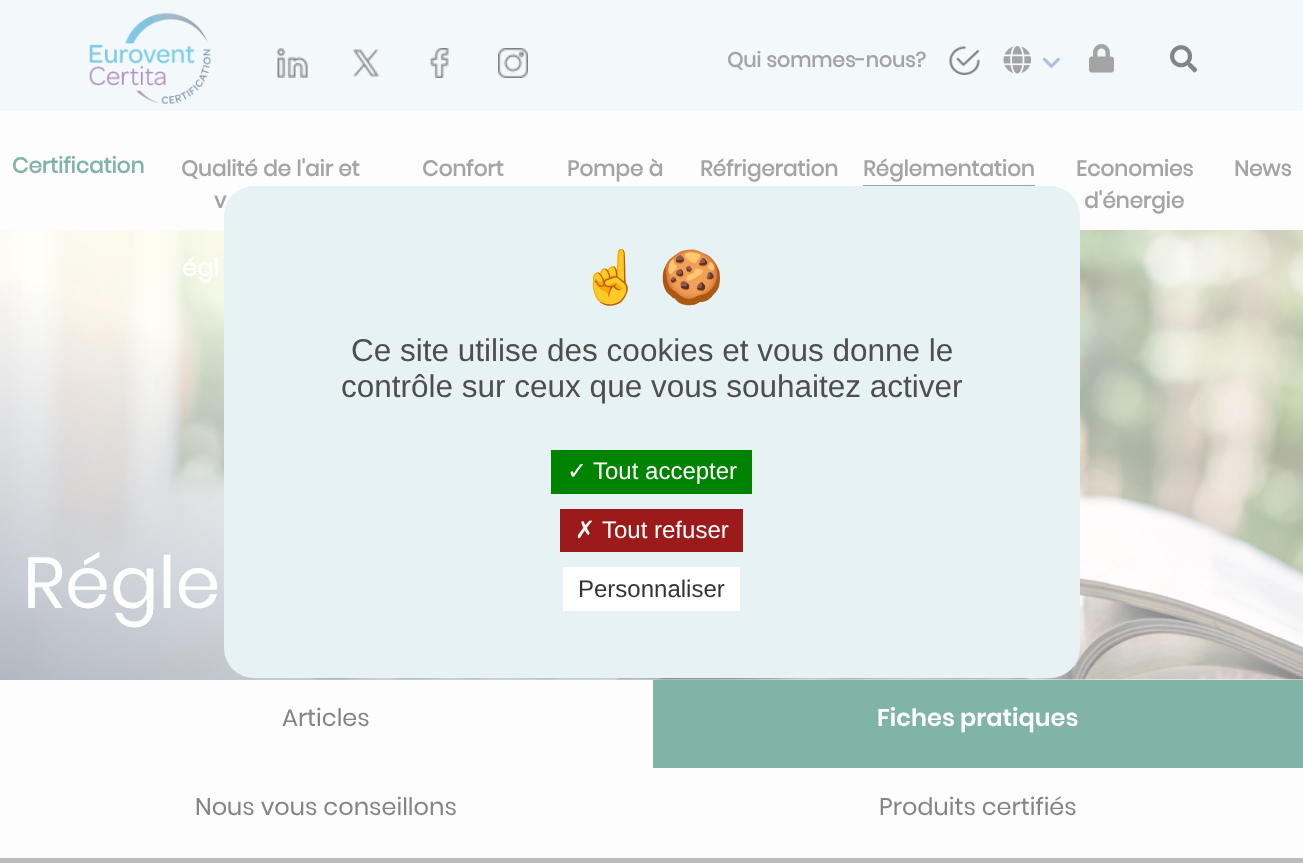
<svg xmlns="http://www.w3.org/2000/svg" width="1303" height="863">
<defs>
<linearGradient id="g1" gradientUnits="userSpaceOnUse" x1="503" y1="863" x2="800" y2="46"><stop offset="0" stop-color="#848d9e" stop-opacity="0.6"/><stop offset="0.45" stop-color="#848d9e" stop-opacity="0"/></linearGradient>
</defs>
<rect width="100%" height="100%" fill="#fdfdfd"/>
<rect width="1303" height="111" fill="#f3f9fa"/>
<image x="89" y="12" width="123" height="93" href="media/1.png"/>
<image x="277" y="48" width="31" height="30" href="media/2.png"/>
<image x="352" y="49" width="28" height="28" href="media/3.png"/>
<image x="430" y="48" width="19" height="30" href="media/4.png"/>
<image x="498" y="48" width="30" height="30" href="media/5.png"/>
<text x="727" y="67" style="font-family:Poppins;font-size:20.5px;font-weight:bold;fill:#a4a4a4">Qui sommes-nous?</text>
<image x="949" y="46" width="31" height="29" href="media/6.png"/>
<image x="1003" y="46" width="29" height="28" href="media/7.png"/>
<image x="1042" y="57" width="19" height="12" href="media/8.png"/>
<image x="1089" y="44" width="25" height="29" href="media/9.png"/>
<image x="1170" y="45" width="28" height="28" href="media/10.png"/>
<text x="12" y="173" style="font-family:Poppins;font-size:21.5px;font-weight:bold;fill:#80b4a6">Certification</text>
<text x="181" y="176" style="font-family:Poppins;font-size:21.5px;font-weight:bold;fill:#a4a4a4">Qualité de l'air et</text>
<text x="214" y="208" style="font-family:Poppins;font-size:21.5px;font-weight:bold;fill:#a4a4a4">v</text>
<text x="422" y="176" style="font-family:Poppins;font-size:21.5px;font-weight:bold;fill:#a4a4a4">Confort</text>
<text x="567" y="176" style="font-family:Poppins;font-size:21.5px;font-weight:bold;fill:#a4a4a4">Pompe à</text>
<text x="700" y="176" style="font-family:Poppins;font-size:21.5px;font-weight:bold;fill:#a4a4a4">Réfrigeration</text>
<text x="863" y="176" style="font-family:Poppins;font-size:21.5px;font-weight:bold;fill:#a4a4a4">Réglementation</text>
<rect x="863" y="185" width="172" height="1" fill="#80b4a6"/>
<text x="1076" y="176" style="font-family:Poppins;font-size:21.5px;font-weight:bold;fill:#a4a4a4">Economies</text>
<text x="1084" y="208" style="font-family:Poppins;font-size:21.5px;font-weight:bold;fill:#a4a4a4">d'énergie</text>
<text x="1234" y="176" style="font-family:Poppins;font-size:21.5px;font-weight:bold;fill:#a4a4a4">News</text>
<image x="0" y="230" width="1303" height="450" href="media/11.png"/>
<rect y="279" width="1095" height="401" fill="url(#g1)"/>
<text x="182" y="276" style="font-family:Poppins;font-size:24px;font-weight:bold;fill:#fff">égl</text>
<text x="23" y="608" style="font-family:Poppins;font-size:72px;fill:#fff">Régle</text>
<text x="282" y="726" style="font-family:Poppins;font-size:24px;fill:#848484">Articles</text>
<rect x="653" y="680" width="650" height="88" fill="#80b4a6"/>
<text x="877" y="726" style="font-family:Poppins;font-size:24px;font-weight:600;fill:#fff">Fiches pratiques</text>
<text x="195" y="815" style="font-family:Poppins;font-size:24px;fill:#848484">Nous vous conseillons</text>
<text x="879" y="815" style="font-family:Poppins;font-size:24px;fill:#848484">Produits certifiés</text>
<rect y="858" width="1303" height="5" fill="#bbb"/>
<rect x="224" y="186" width="856" height="492" rx="30" fill="#e7f2f4"/>
<text x="579" y="295" style="font-family:Noto Color Emoji;font-size:52px;fill:#4e4e4e">☝</text>
<text x="659" y="295" style="font-family:Noto Color Emoji;font-size:52px;fill:#4e4e4e">🍪</text>
<text x="351" y="361" style="font-family:Liberation Sans;font-size:31.5px;fill:#4e4e4e">Ce site utilise des cookies et vous donne le</text>
<text x="341" y="397" style="font-family:Liberation Sans;font-size:31.5px;fill:#4e4e4e">contrôle sur ceux que vous souhaitez activer</text>
<rect x="551" y="450" width="201" height="44" fill="#008300"/>
<text x="567" y="479" style="font-family:DejaVu Sans;font-size:24px;fill:#fff">✓</text>
<text x="593" y="479" style="font-family:Liberation Sans;font-size:24px;fill:#fff">Tout accepter</text>
<rect x="560" y="509" width="183" height="43" fill="#9c1a1a"/>
<text x="575" y="538" style="font-family:DejaVu Sans;font-size:24px;fill:#fff">✗</text>
<text x="602" y="538" style="font-family:Liberation Sans;font-size:24px;fill:#fff">Tout refuser</text>
<rect x="563" y="567" width="177" height="44" fill="#fff"/>
<text x="578" y="597" style="font-family:Liberation Sans;font-size:24px;fill:#333">Personnaliser</text>
</svg>
